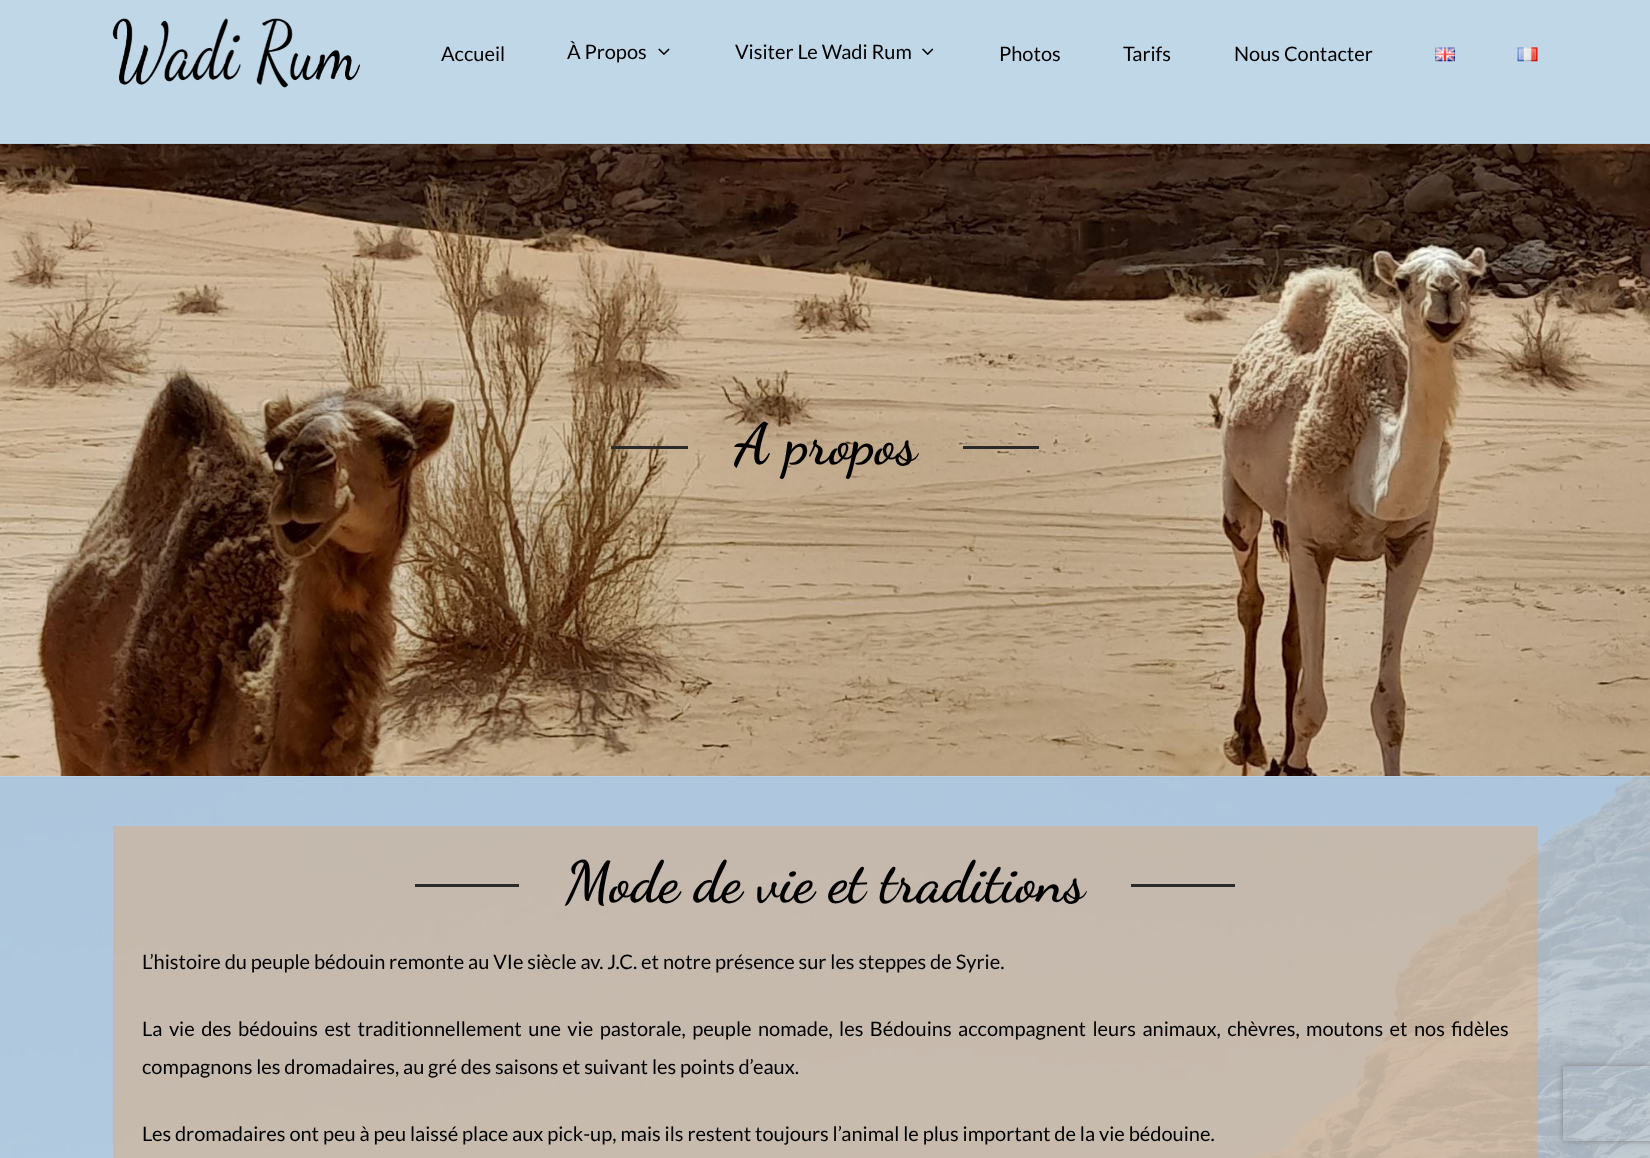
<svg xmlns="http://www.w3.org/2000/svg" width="1650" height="1158">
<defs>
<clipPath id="clip1"><path d="M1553 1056h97v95h-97zm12.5 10h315c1.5 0 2.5 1 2.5 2.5v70c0 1.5-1 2.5-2.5 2.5h-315c-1.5 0-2.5-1-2.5-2.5v-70c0-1.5 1-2.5 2.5-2.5z" clip-rule="evenodd"/></clipPath>
</defs>
<rect width="100%" height="100%" fill="#c0d7e7"/>
<image x="112" y="18" width="248" height="70" href="media/1.png"/>
<text x="441" y="61" style="font-family:Lato;font-size:20px;fill:#000">Accueil</text>
<text x="567" y="59" style="font-family:Lato;font-size:20px;fill:#000">À Propos</text>
<image x="658" y="48" width="12" height="7" href="media/2.png"/>
<text x="735" y="59" style="font-family:Lato;font-size:20px;fill:#000">Visiter Le Wadi Rum</text>
<image x="922" y="48" width="12" height="7" href="media/3.png"/>
<text x="999" y="61" style="font-family:Lato;font-size:20px;fill:#000">Photos</text>
<text x="1123" y="61" style="font-family:Lato;font-size:20px;fill:#000">Tarifs</text>
<text x="1234" y="61" style="font-family:Lato;font-size:20px;fill:#000">Nous Contacter</text>
<image x="1435" y="47" width="20" height="15" href="media/4.png"/>
<image x="1517" y="47" width="21" height="15" href="media/5.png"/>
<rect y="776" width="1650" height="1" fill="#f8f8f8"/>
<image x="0" y="143" width="1650" height="634" href="media/6.png"/>
<rect x="611" y="446" width="77" height="3" fill="#2a2a2a"/>
<text x="734" y="463" style="font-family:Dancing Script;font-size:57.5px;font-weight:bold;fill:#000">A propos</text>
<rect x="963" y="446" width="76" height="3" fill="#2a2a2a"/>
<image x="0" y="776" width="1650" height="382" href="media/7.png"/>
<rect y="776" width="1650" height="382" fill="#c0d7e7cc"/>
<rect x="113" y="826" width="1425" height="332" fill="#e1a87073"/>
<rect x="415" y="884" width="104" height="3" fill="#2a2a2a"/>
<text x="565" y="901" style="font-family:Dancing Script;font-size:57.5px;font-weight:bold;fill:#000">Mode de vie et traditions</text>
<rect x="1131" y="884" width="104" height="3" fill="#2a2a2a"/>
<text x="142" y="969" style="font-family:Lato;font-size:20px;fill:#000">L’histoire du peuple bédouin remonte au VIe siècle av. J.C. et notre présence sur les steppes de Syrie.</text>
<text x="142" y="1036" word-spacing="2.6" style="font-family:Lato;font-size:20px;fill:#000">La vie des bédouins est traditionnellement une vie pastorale, peuple nomade, les Bédouins accompagnent leurs animaux, chèvres, moutons et nos fidèles</text>
<text x="142" y="1074" style="font-family:Lato;font-size:20px;fill:#000">compagnons les dromadaires, au gré des saisons et suivant les points d’eaux.</text>
<text x="142" y="1141" style="font-family:Lato;font-size:20px;fill:#000">Les dromadaires ont peu à peu laissé place aux pick-up, mais ils restent toujours l’animal le plus important de la vie bédouine.</text>
<g clip-path="url(#clip1)">
<rect x="1563" y="1066" width="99" height="75" rx="2.5" fill="#808080" filter="blur(3px)"/>
</g>
</svg>
